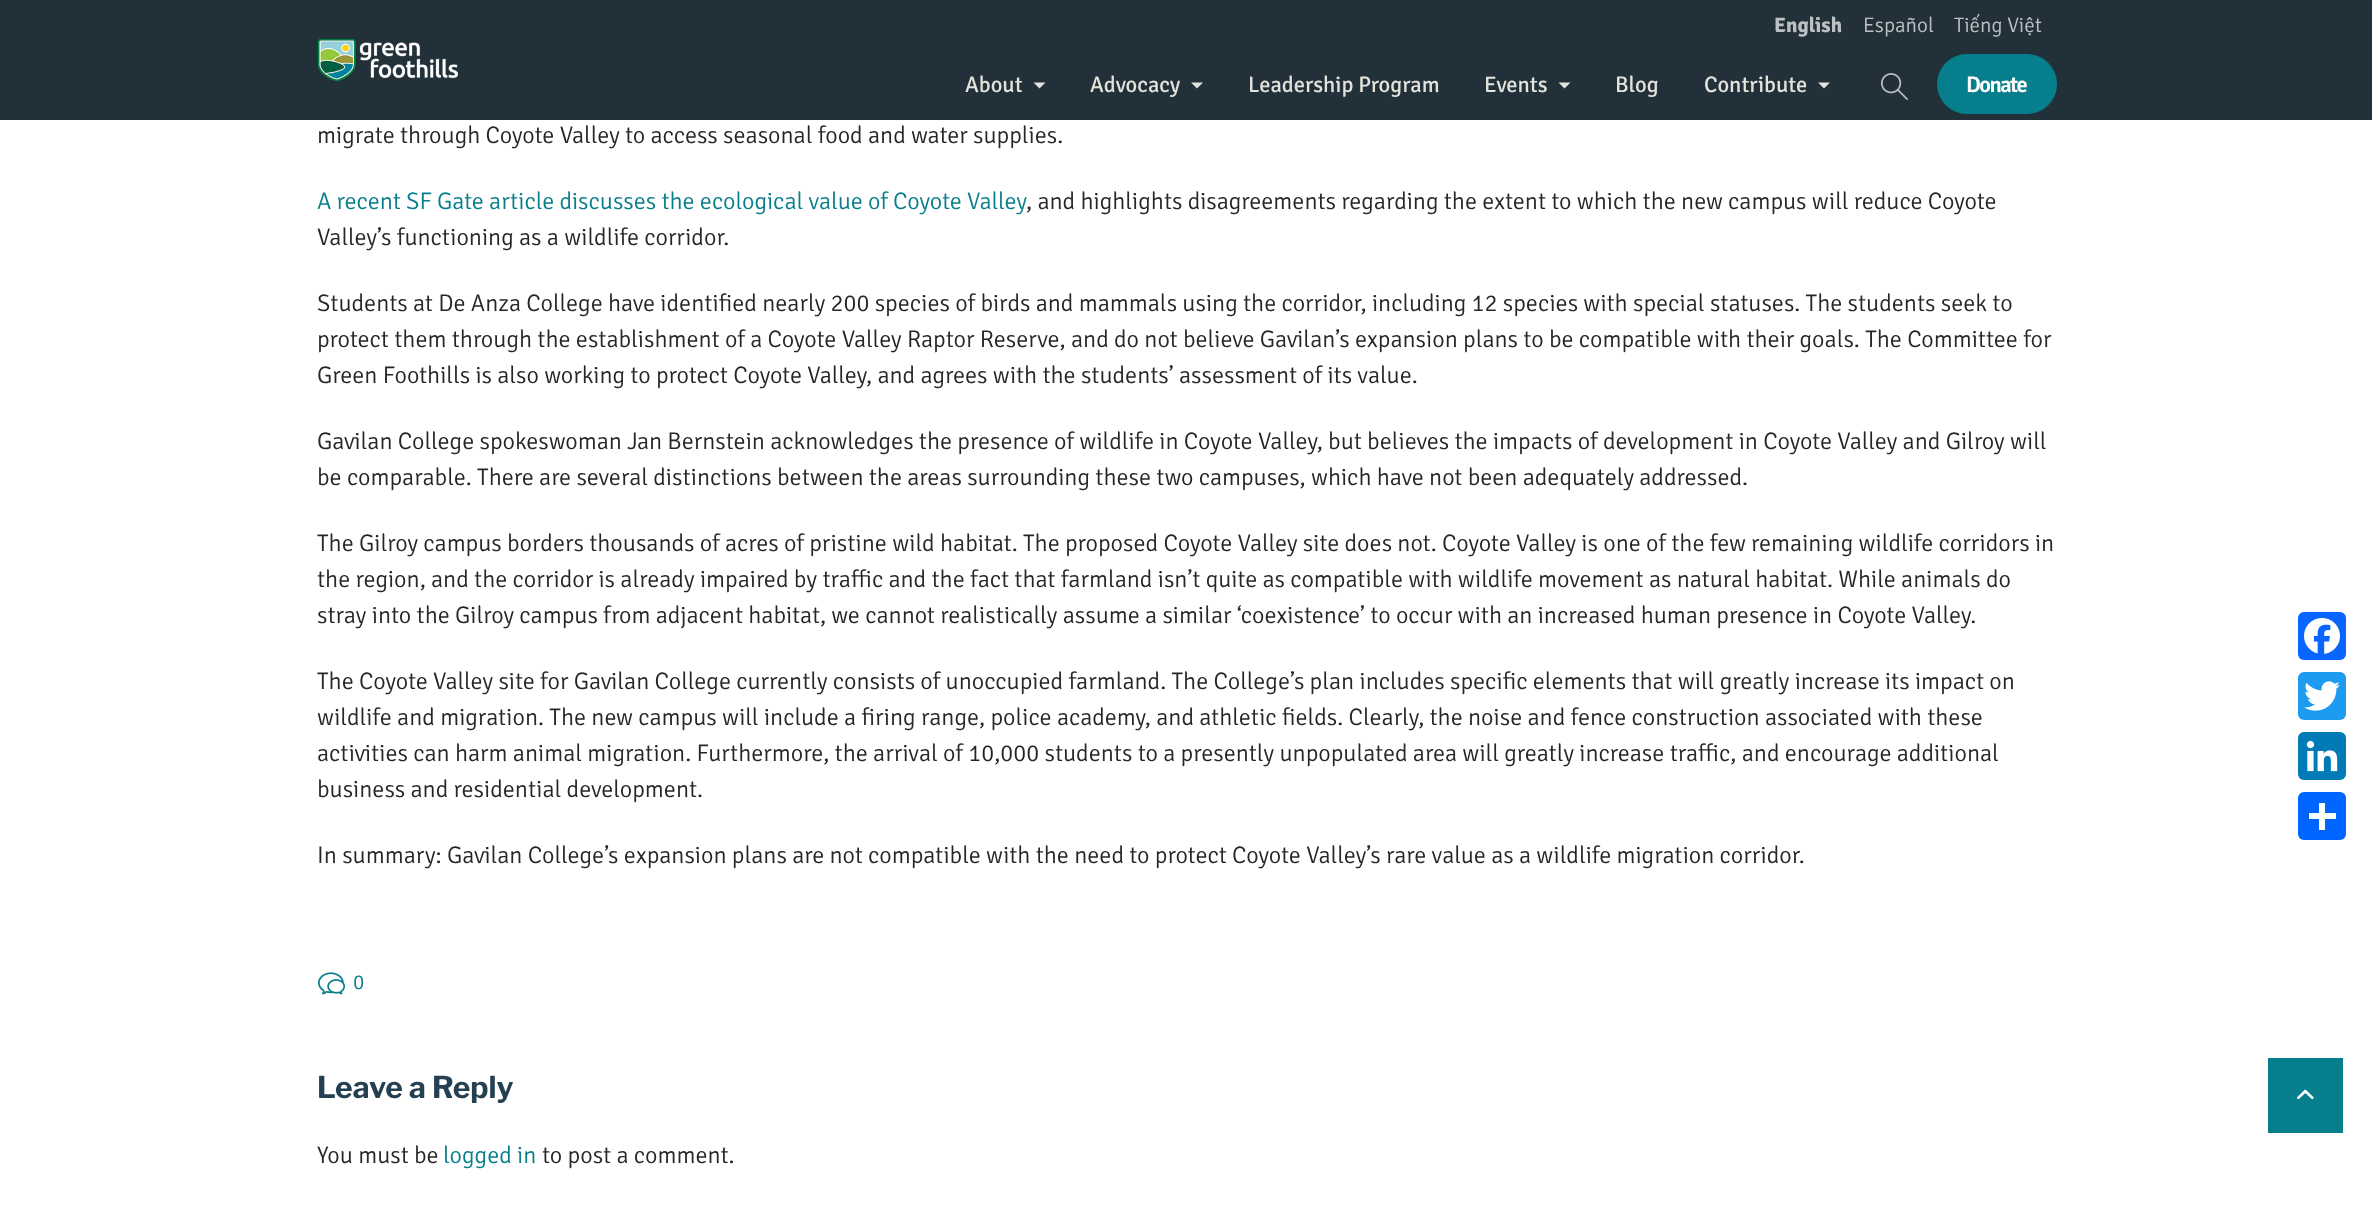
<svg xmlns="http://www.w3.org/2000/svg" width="2372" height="1207">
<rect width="100%" height="100%" fill="#fff"/>
<rect width="2372" height="120" fill="#223139"/>
<image x="317" y="39" width="141" height="43" href="media/1.png"/>
<text x="1774" y="32" style="font-family:Signika;font-size:21px;font-weight:bold;fill:#bdc1c4">English</text>
<text x="1863" y="32" style="font-family:Signika;font-size:21px;font-weight:300;fill:#bdc1c4">Español</text>
<text x="1954" y="32" style="font-family:Signika;font-size:21px;font-weight:300;fill:#bdc1c4">Tiếng Việt</text>
<rect x="1937" y="54" width="120" height="60" rx="30" fill="#077e8b"/>
<text x="1966" y="92" style="font-family:Signika;font-size:22.5px;font-weight:600;letter-spacing:-1.5px;fill:#fff">Donate</text>
<text x="965" y="92" style="font-family:Signika;font-size:22.5px;fill:#e3e2db">About</text>
<path d="M1033.5 82.5h12l-6 6z" fill="#e3e2db"/>
<text x="1090" y="92" style="font-family:Signika;font-size:22.5px;fill:#e3e2db">Advocacy</text>
<path d="M1191 82.5h12l-6 6z" fill="#e3e2db"/>
<text x="1248" y="92" style="font-family:Signika;font-size:22.5px;fill:#e3e2db">Leadership Program</text>
<text x="1484" y="92" style="font-family:Signika;font-size:22.5px;fill:#e3e2db">Events</text>
<path d="M1558.5 82.5h12l-6 6z" fill="#e3e2db"/>
<text x="1615" y="92" style="font-family:Signika;font-size:22.5px;fill:#e3e2db">Blog</text>
<text x="1704" y="92" style="font-family:Signika;font-size:22.5px;fill:#e3e2db">Contribute</text>
<path d="M1818 82.5h12l-6 6z" fill="#e3e2db"/>
<image x="1881" y="73" width="27" height="27" href="media/2.png"/>
<text x="317" y="143" style="font-family:Signika;font-size:24px;font-weight:300;fill:#262626">migrate through Coyote Valley to access seasonal food and water supplies.</text>
<text x="317" y="209" word-spacing="-0.1" style="font-family:Signika;font-size:24px;font-weight:300;fill:#077e8b">A recent SF Gate article discusses the ecological value of Coyote Valley</text>
<text x="1026" y="209" style="font-family:Signika;font-size:24px;font-weight:300;fill:#262626">, and highlights disagreements regarding the extent to which the new campus will reduce Coyote</text>
<text x="317" y="245" style="font-family:Signika;font-size:24px;font-weight:300;fill:#262626">Valley’s functioning as a wildlife corridor.</text>
<text x="317" y="311" style="font-family:Signika;font-size:24px;font-weight:300;fill:#262626">Students at De Anza College have identified nearly 200 species of birds and mammals using the corridor, including 12 species with special statuses. The students seek to</text>
<text x="317" y="347" style="font-family:Signika;font-size:24px;font-weight:300;fill:#262626">protect them through the establishment of a Coyote Valley Raptor Reserve, and do not believe Gavilan’s expansion plans to be compatible with their goals. The Committee for</text>
<text x="317" y="383" style="font-family:Signika;font-size:24px;font-weight:300;fill:#262626">Green Foothills is also working to protect Coyote Valley, and agrees with the students’ assessment of its value.</text>
<text x="317" y="449" style="font-family:Signika;font-size:24px;font-weight:300;fill:#262626">Gavilan College spokeswoman Jan Bernstein acknowledges the presence of wildlife in Coyote Valley, but believes the impacts of development in Coyote Valley and Gilroy will</text>
<text x="317" y="485" style="font-family:Signika;font-size:24px;font-weight:300;fill:#262626">be comparable. There are several distinctions between the areas surrounding these two campuses, which have not been adequately addressed.</text>
<text x="317" y="551" style="font-family:Signika;font-size:24px;font-weight:300;fill:#262626">The Gilroy campus borders thousands of acres of pristine wild habitat. The proposed Coyote Valley site does not. Coyote Valley is one of the few remaining wildlife corridors in</text>
<text x="317" y="587" style="font-family:Signika;font-size:24px;font-weight:300;fill:#262626">the region, and the corridor is already impaired by traffic and the fact that farmland isn’t quite as compatible with wildlife movement as natural habitat. While animals do</text>
<text x="317" y="623" style="font-family:Signika;font-size:24px;font-weight:300;fill:#262626">stray into the Gilroy campus from adjacent habitat, we cannot realistically assume a similar ‘coexistence’ to occur with an increased human presence in Coyote Valley.</text>
<text x="317" y="689" style="font-family:Signika;font-size:24px;font-weight:300;fill:#262626">The Coyote Valley site for Gavilan College currently consists of unoccupied farmland. The College’s plan includes specific elements that will greatly increase its impact on</text>
<text x="317" y="725" style="font-family:Signika;font-size:24px;font-weight:300;fill:#262626">wildlife and migration. The new campus will include a firing range, police academy, and athletic fields. Clearly, the noise and fence construction associated with these</text>
<text x="317" y="761" style="font-family:Signika;font-size:24px;font-weight:300;fill:#262626">activities can harm animal migration. Furthermore, the arrival of 10,000 students to a presently unpopulated area will greatly increase traffic, and encourage additional</text>
<text x="317" y="797" style="font-family:Signika;font-size:24px;font-weight:300;fill:#262626">business and residential development.</text>
<text x="317" y="863" style="font-family:Signika;font-size:24px;font-weight:300;fill:#262626">In summary: Gavilan College’s expansion plans are not compatible with the need to protect Coyote Valley’s rare value as a wildlife migration corridor.</text>
<image x="318" y="972" width="27" height="23" href="media/3.png"/>
<text x="353" y="989" style="font-family:Signika;font-size:21px;font-weight:300;fill:#077e8b">0</text>
<text x="317" y="1098" style="font-family:Libre Franklin;font-size:30px;font-weight:bold;fill:#254151">Leave a Reply</text>
<text x="317" y="1163" style="font-family:Signika;font-size:24px;font-weight:300;fill:#262626">You must be</text>
<text x="443" y="1163" style="font-family:Signika;font-size:24px;font-weight:300;fill:#077e8b">logged in</text>
<text x="542" y="1163" style="font-family:Signika;font-size:24px;font-weight:300;fill:#262626">to post a comment.</text>
<rect x="2268" y="1058" width="75" height="75" fill="#077e8b"/>
<image x="2297" y="1089" width="17" height="11" href="media/4.png"/>
<rect x="2298" y="612" width="48" height="48" rx="6" fill="#0866ff"/>
<image x="2304" y="618" width="36" height="36" href="media/5.png"/>
<rect x="2298" y="672" width="48" height="48" rx="6" fill="#1d9bf0"/>
<image x="2304" y="681" width="36" height="30" href="media/6.png"/>
<rect x="2298" y="732" width="48" height="48" rx="6" fill="#007bb5"/>
<image x="2306" y="740" width="32" height="32" href="media/7.png"/>
<rect x="2298" y="792" width="48" height="48" rx="6" fill="#0166ff"/>
<rect x="2319" y="803" width="6" height="27" fill="#fff"/>
<rect x="2309" y="813" width="27" height="6" fill="#fff"/>
</svg>
